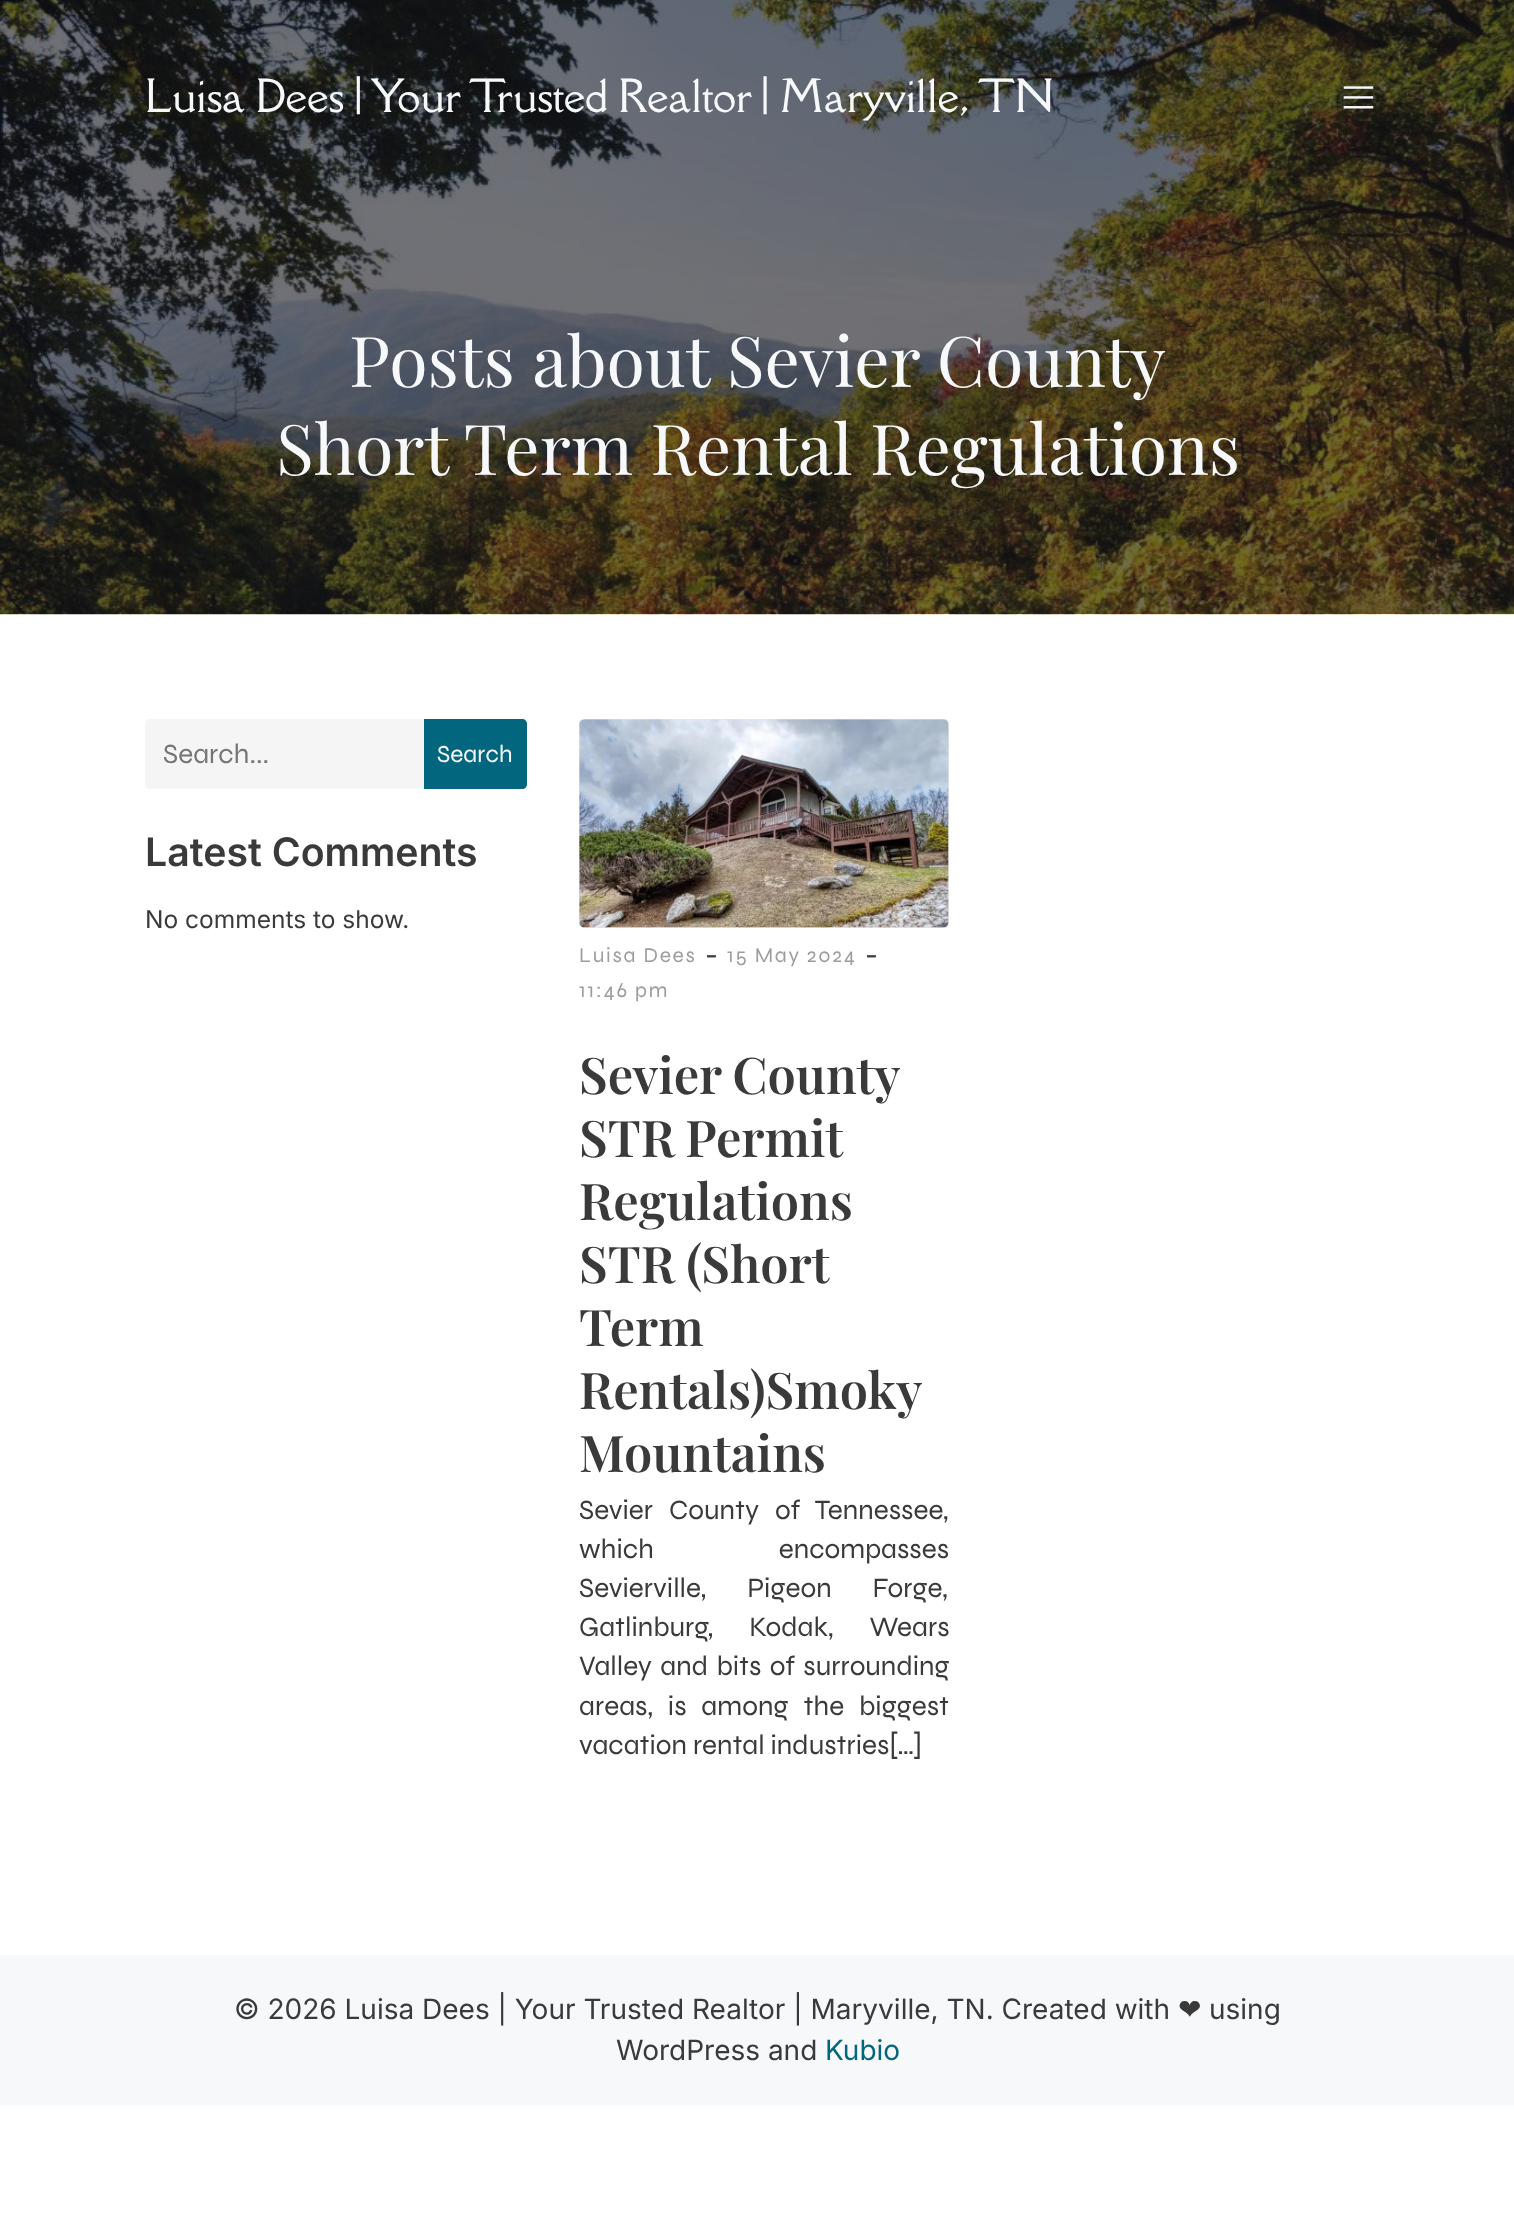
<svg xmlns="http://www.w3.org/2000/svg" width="1514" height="2224">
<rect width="100%" height="100%" fill="#fff"/>
<image x="0" y="0" width="1514" height="615" href="media/2.png"/>
<text x="145" y="112" style="font-family:Della Respira;font-size:42px;fill:#f6f8fa">Luisa Dees | Your Trusted Realtor | Maryville, TN</text>
<image x="1343" y="86" width="31" height="23" href="media/1.png"/>
<text x="349" y="387" style="font-family:Playfair Display;font-size:70px;fill:#f6f8fa">Posts about Sevier County</text>
<text x="276" y="475" style="font-family:Playfair Display;font-size:70px;fill:#f6f8fa">Short Term Rental Regulations</text>
<path d="M150 719h274v70h-274c-3 0-5-2-5-5v-60c0-3 2-5 5-5z" fill="#f5f5f5"/>
<text x="163" y="763" style="font-family:Syne;font-size:28px;fill:#757575">Search...</text>
<path d="M424 719h98c3 0 5 2 5 5v60c0 3-2 5-5 5h-98z" fill="#02667f"/>
<text x="437" y="762" style="font-family:Syne;font-size:24.5px;fill:#f6f8fa">Search</text>
<text x="145" y="866" style="font-family:Inter;font-size:39.25px;font-weight:600;fill:#3a3a3a">Latest Comments</text>
<text x="145" y="928" style="font-family:Inter;font-size:24.5px;fill:#3a3a3a">No comments to show.</text>
<rect x="579" y="719" width="370" height="209" rx="5" fill="#e6e6e6"/>
<image x="579" y="719" width="370" height="209" href="media/3.png"/>
<text x="579" y="962" style="font-family:Syne;font-size:21px;letter-spacing:1.75px;fill:#9d9d9d">Luisa Dees</text>
<text x="705" y="965" style="font-family:Inter;font-size:28px;fill:#3a3a3a">-</text>
<text x="727" y="962" style="font-family:Syne;font-size:21px;letter-spacing:1.75px;fill:#9d9d9d">15 May 2024</text>
<text x="865" y="965" style="font-family:Inter;font-size:28px;fill:#3a3a3a">-</text>
<text x="579" y="997" style="font-family:Syne;font-size:21px;letter-spacing:1.75px;fill:#9d9d9d">11:46 pm</text>
<text x="579" y="1094" word-spacing="-1" style="font-family:Playfair Display;font-size:50.5px;font-weight:600;fill:#3a3a3a">Sevier County</text>
<text x="579" y="1157" word-spacing="-1" style="font-family:Playfair Display;font-size:50.5px;font-weight:600;fill:#3a3a3a">STR Permit</text>
<text x="579" y="1220" style="font-family:Playfair Display;font-size:50.5px;font-weight:600;fill:#3a3a3a">Regulations</text>
<text x="579" y="1283" style="font-family:Playfair Display;font-size:50.5px;font-weight:600;fill:#3a3a3a">STR (Short</text>
<text x="579" y="1346" style="font-family:Playfair Display;font-size:50.5px;font-weight:600;fill:#3a3a3a">Term</text>
<text x="579" y="1409" style="font-family:Playfair Display;font-size:50.5px;font-weight:600;fill:#3a3a3a">Rentals)Smoky</text>
<text x="579" y="1472" style="font-family:Playfair Display;font-size:50.5px;font-weight:600;fill:#3a3a3a">Mountains</text>
<text x="579" y="1519" word-spacing="10" style="font-family:Syne;font-size:28px;fill:#3a3a3a">Sevier County of Tennessee,</text>
<text x="579" y="1558" word-spacing="119" style="font-family:Syne;font-size:28px;fill:#3a3a3a">which encompasses</text>
<text x="579" y="1597" word-spacing="35" style="font-family:Syne;font-size:28px;fill:#3a3a3a">Sevierville, Pigeon Forge,</text>
<text x="579" y="1636" word-spacing="30" style="font-family:Syne;font-size:28px;fill:#3a3a3a">Gatlinburg, Kodak, Wears</text>
<text x="579" y="1675" word-spacing="2.5" style="font-family:Syne;font-size:28px;fill:#3a3a3a">Valley and bits of surrounding</text>
<text x="579" y="1715" word-spacing="9" style="font-family:Syne;font-size:28px;fill:#3a3a3a">areas, is among the biggest</text>
<text x="579" y="1754" style="font-family:Syne;font-size:28px;fill:#3a3a3a">vacation rental industries[…]</text>
<rect y="1955" width="1514" height="150" fill="#f6f8fa"/>
<text x="234" y="2019" style="font-family:Inter;font-size:28px;fill:#3a3a3a">© 2026 Luisa Dees | Your Trusted Realtor | Maryville, TN. Created with</text>
<text x="1178" y="2019" style="font-family:DejaVu Sans;font-size:28px;fill:#3a3a3a">❤</text>
<text x="1209" y="2019" style="font-family:Inter;font-size:28px;fill:#3a3a3a">using</text>
<text x="616" y="2060" style="font-family:Inter;font-size:28px;fill:#3a3a3a">WordPress and</text>
<text x="825" y="2060" style="font-family:Inter;font-size:28px;fill:#02667f">Kubio</text>
</svg>
